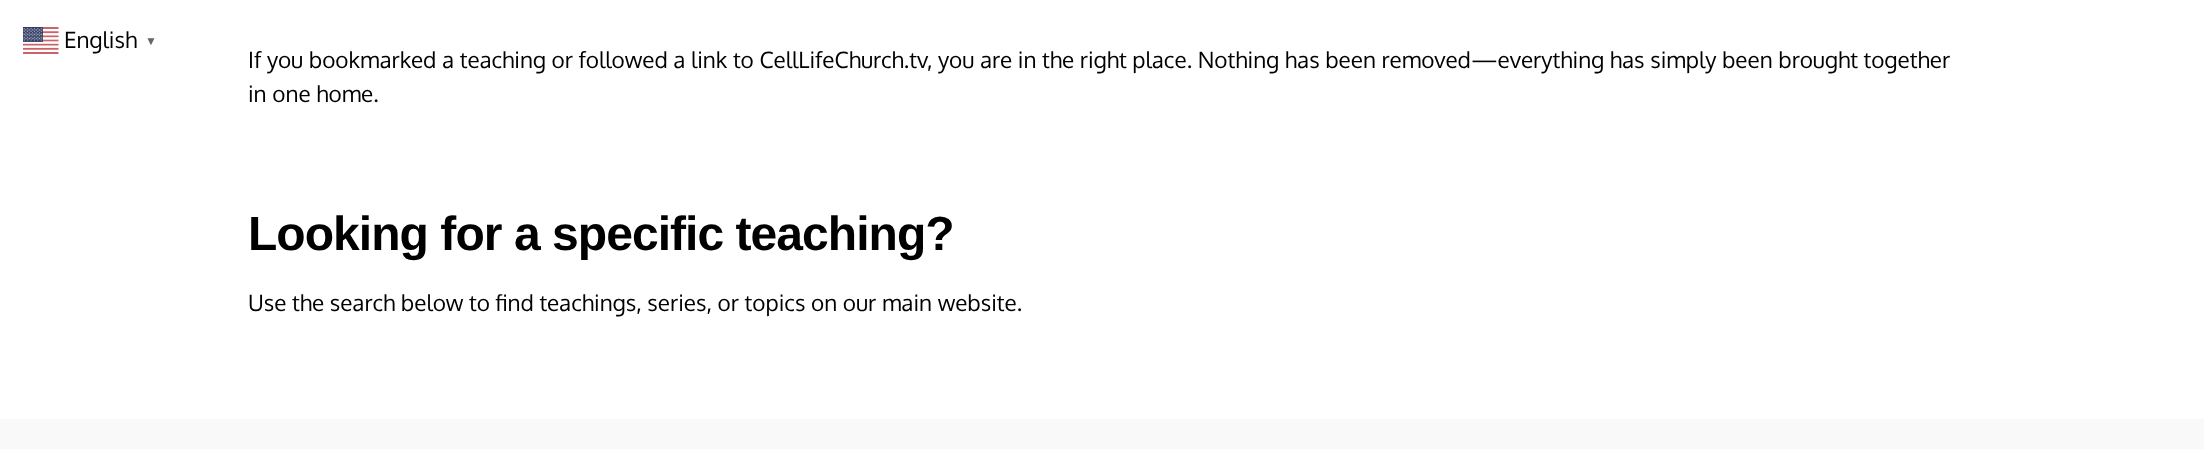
<svg xmlns="http://www.w3.org/2000/svg" width="2204" height="449">
<rect width="100%" height="100%" fill="#fff"/>
<image x="23" y="27" width="36" height="27" href="media/1.png"/>
<text x="64" y="48" style="font-family:Oxygen;font-size:22.5px;fill:#000">English</text>
<text x="145" y="45" style="font-family:Liberation Sans;font-size:12px;font-weight:bold;fill:#666">▼</text>
<text x="248" y="68" style="font-family:Oxygen;font-size:22.5px;fill:#000">If you bookmarked a teaching or followed a link to CellLifeChurch.tv, you are in the right place. Nothing has been removed—everything has simply been brought together</text>
<text x="248" y="102" style="font-family:Oxygen;font-size:22.5px;fill:#000">in one home.</text>
<text x="248" y="250" style="font-family:Liberation Sans;font-size:48px;font-weight:bold;letter-spacing:-0.95px;fill:#000">Looking for a specific teaching?</text>
<text x="248" y="311" style="font-family:Oxygen;font-size:22.5px;fill:#000">Use the search below to find teachings, series, or topics on our main website.</text>
<rect y="419" width="2204" height="30" fill="#f9f9fa"/>
</svg>
